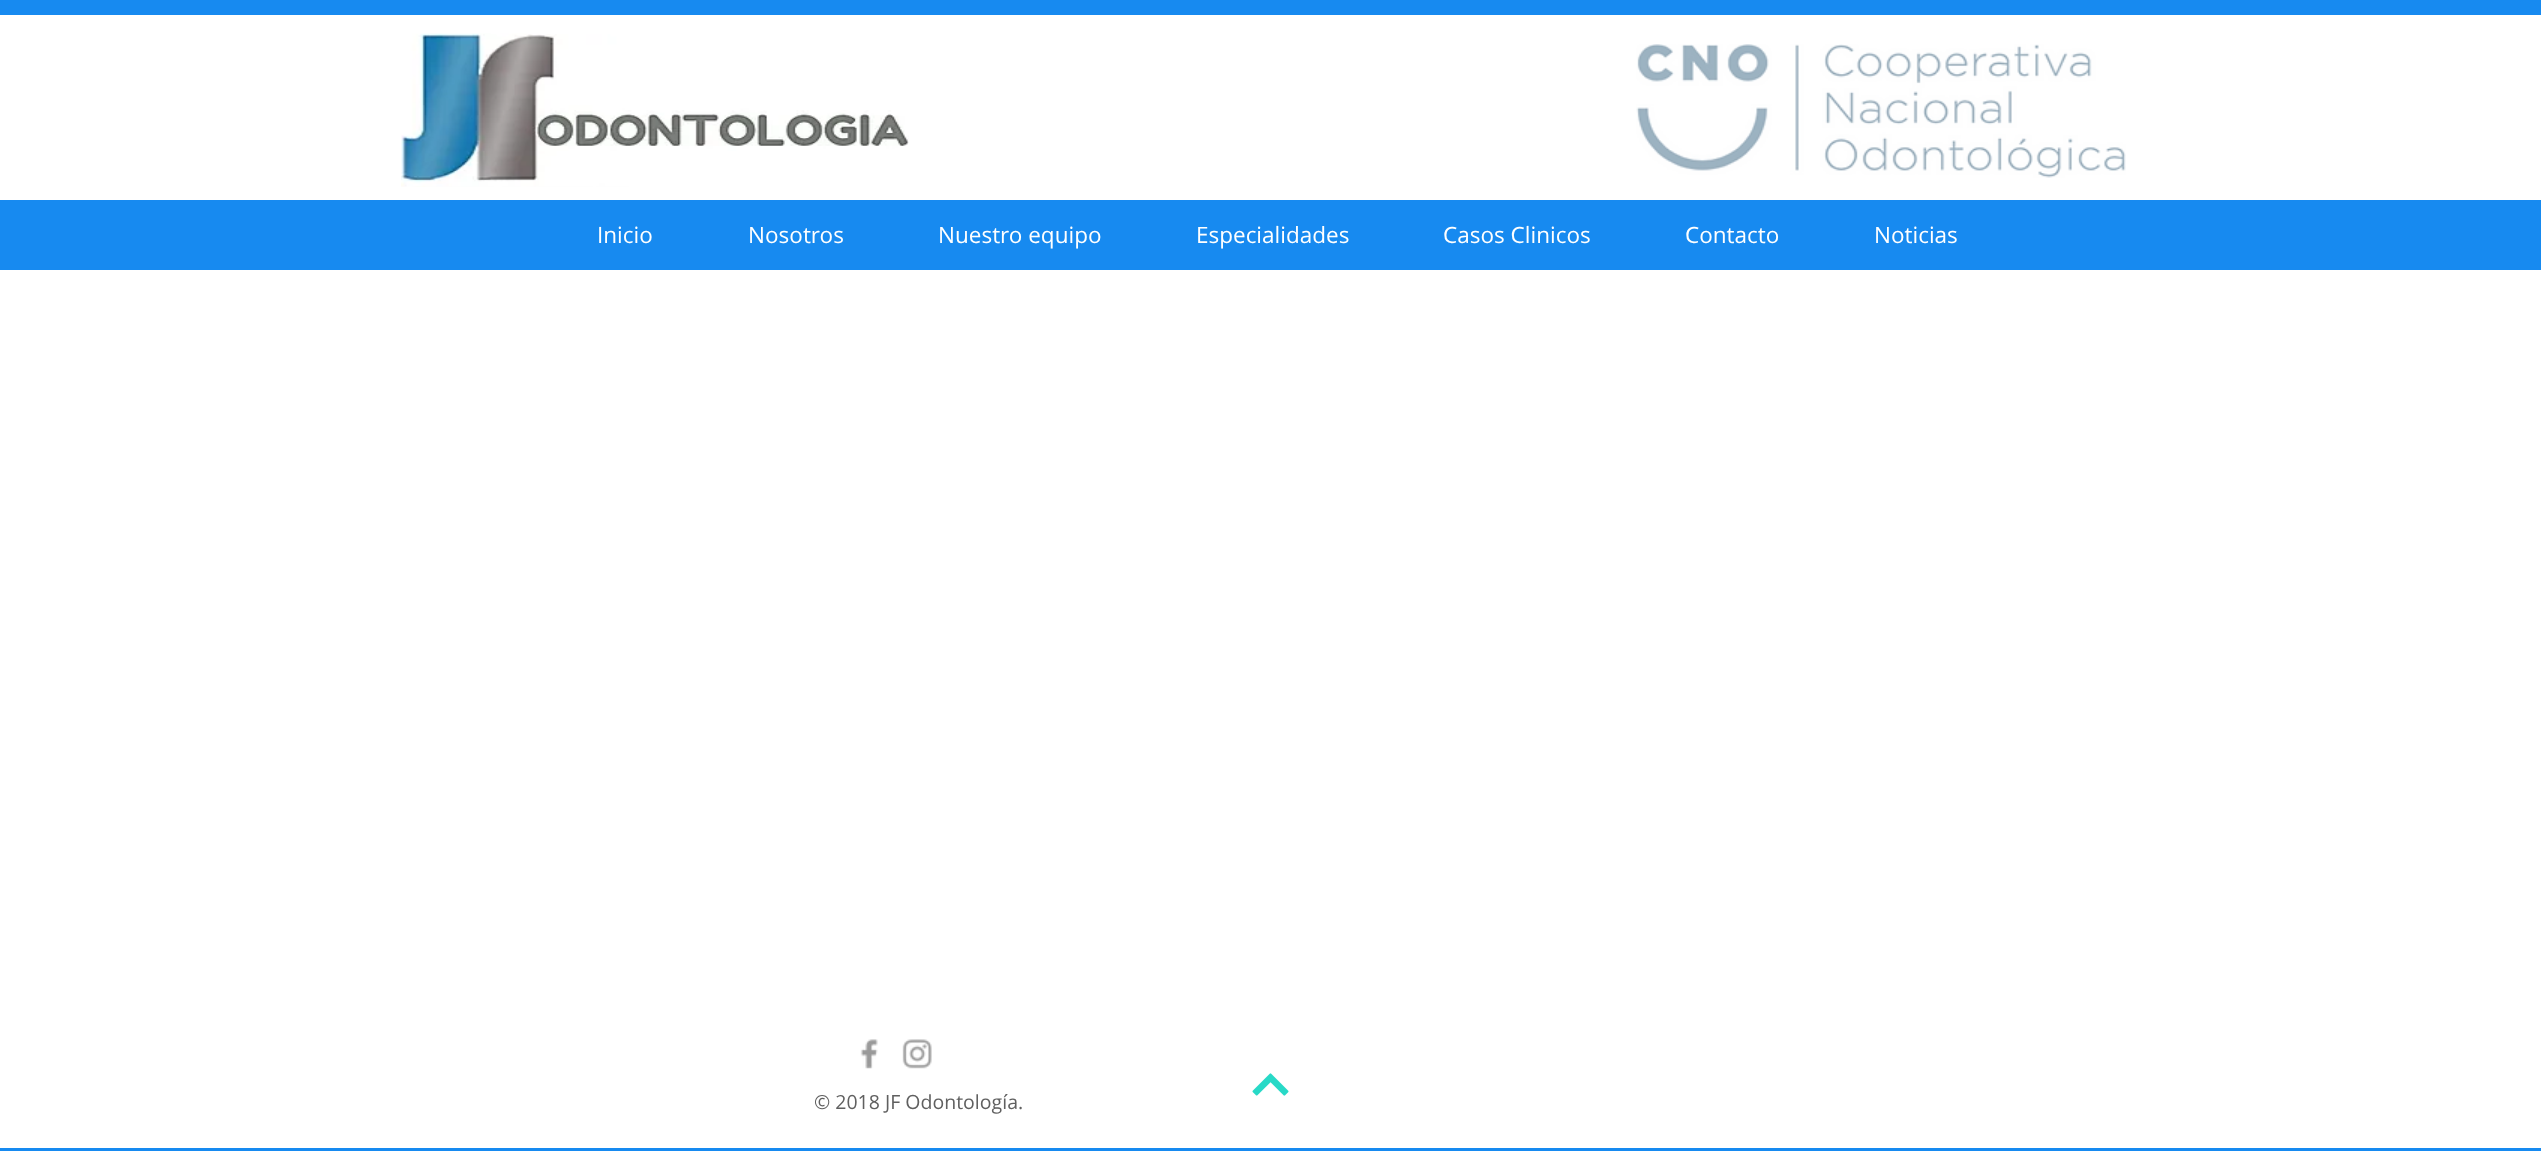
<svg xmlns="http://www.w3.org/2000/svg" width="2541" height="1151">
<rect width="100%" height="100%" fill="#fff"/>
<rect width="2541" height="15" fill="#178af0"/>
<image x="401" y="33" width="508" height="154" href="media/1.png"/>
<image x="1636" y="44" width="490" height="134" href="media/2.png"/>
<rect y="200" width="2541" height="70" fill="#178af0"/>
<text x="597" y="243" style="font-family:Open Sans;font-size:22.5px;fill:#fff">Inicio</text>
<text x="748" y="243" style="font-family:Open Sans;font-size:22.5px;fill:#fff">Nosotros</text>
<text x="938" y="243" style="font-family:Open Sans;font-size:22.5px;fill:#fff">Nuestro equipo</text>
<text x="1196" y="243" style="font-family:Open Sans;font-size:22.5px;fill:#fff">Especialidades</text>
<text x="1443" y="243" style="font-family:Open Sans;font-size:22.5px;fill:#fff">Casos Clinicos</text>
<text x="1685" y="243" style="font-family:Open Sans;font-size:22.5px;fill:#fff">Contacto</text>
<text x="1874" y="243" style="font-family:Open Sans;font-size:22.5px;fill:#fff">Noticias</text>
<image x="860" y="1039" width="18" height="30" href="media/3.png"/>
<image x="902" y="1039" width="30" height="30" href="media/4.png"/>
<image x="1252" y="1073" width="37" height="23" href="media/5.png"/>
<text x="814" y="1109" style="font-family:Open Sans;font-size:19.5px;fill:#606060">© 2018 JF Odontología.</text>
<rect y="1148" width="2541" height="3" fill="#178af0"/>
</svg>
